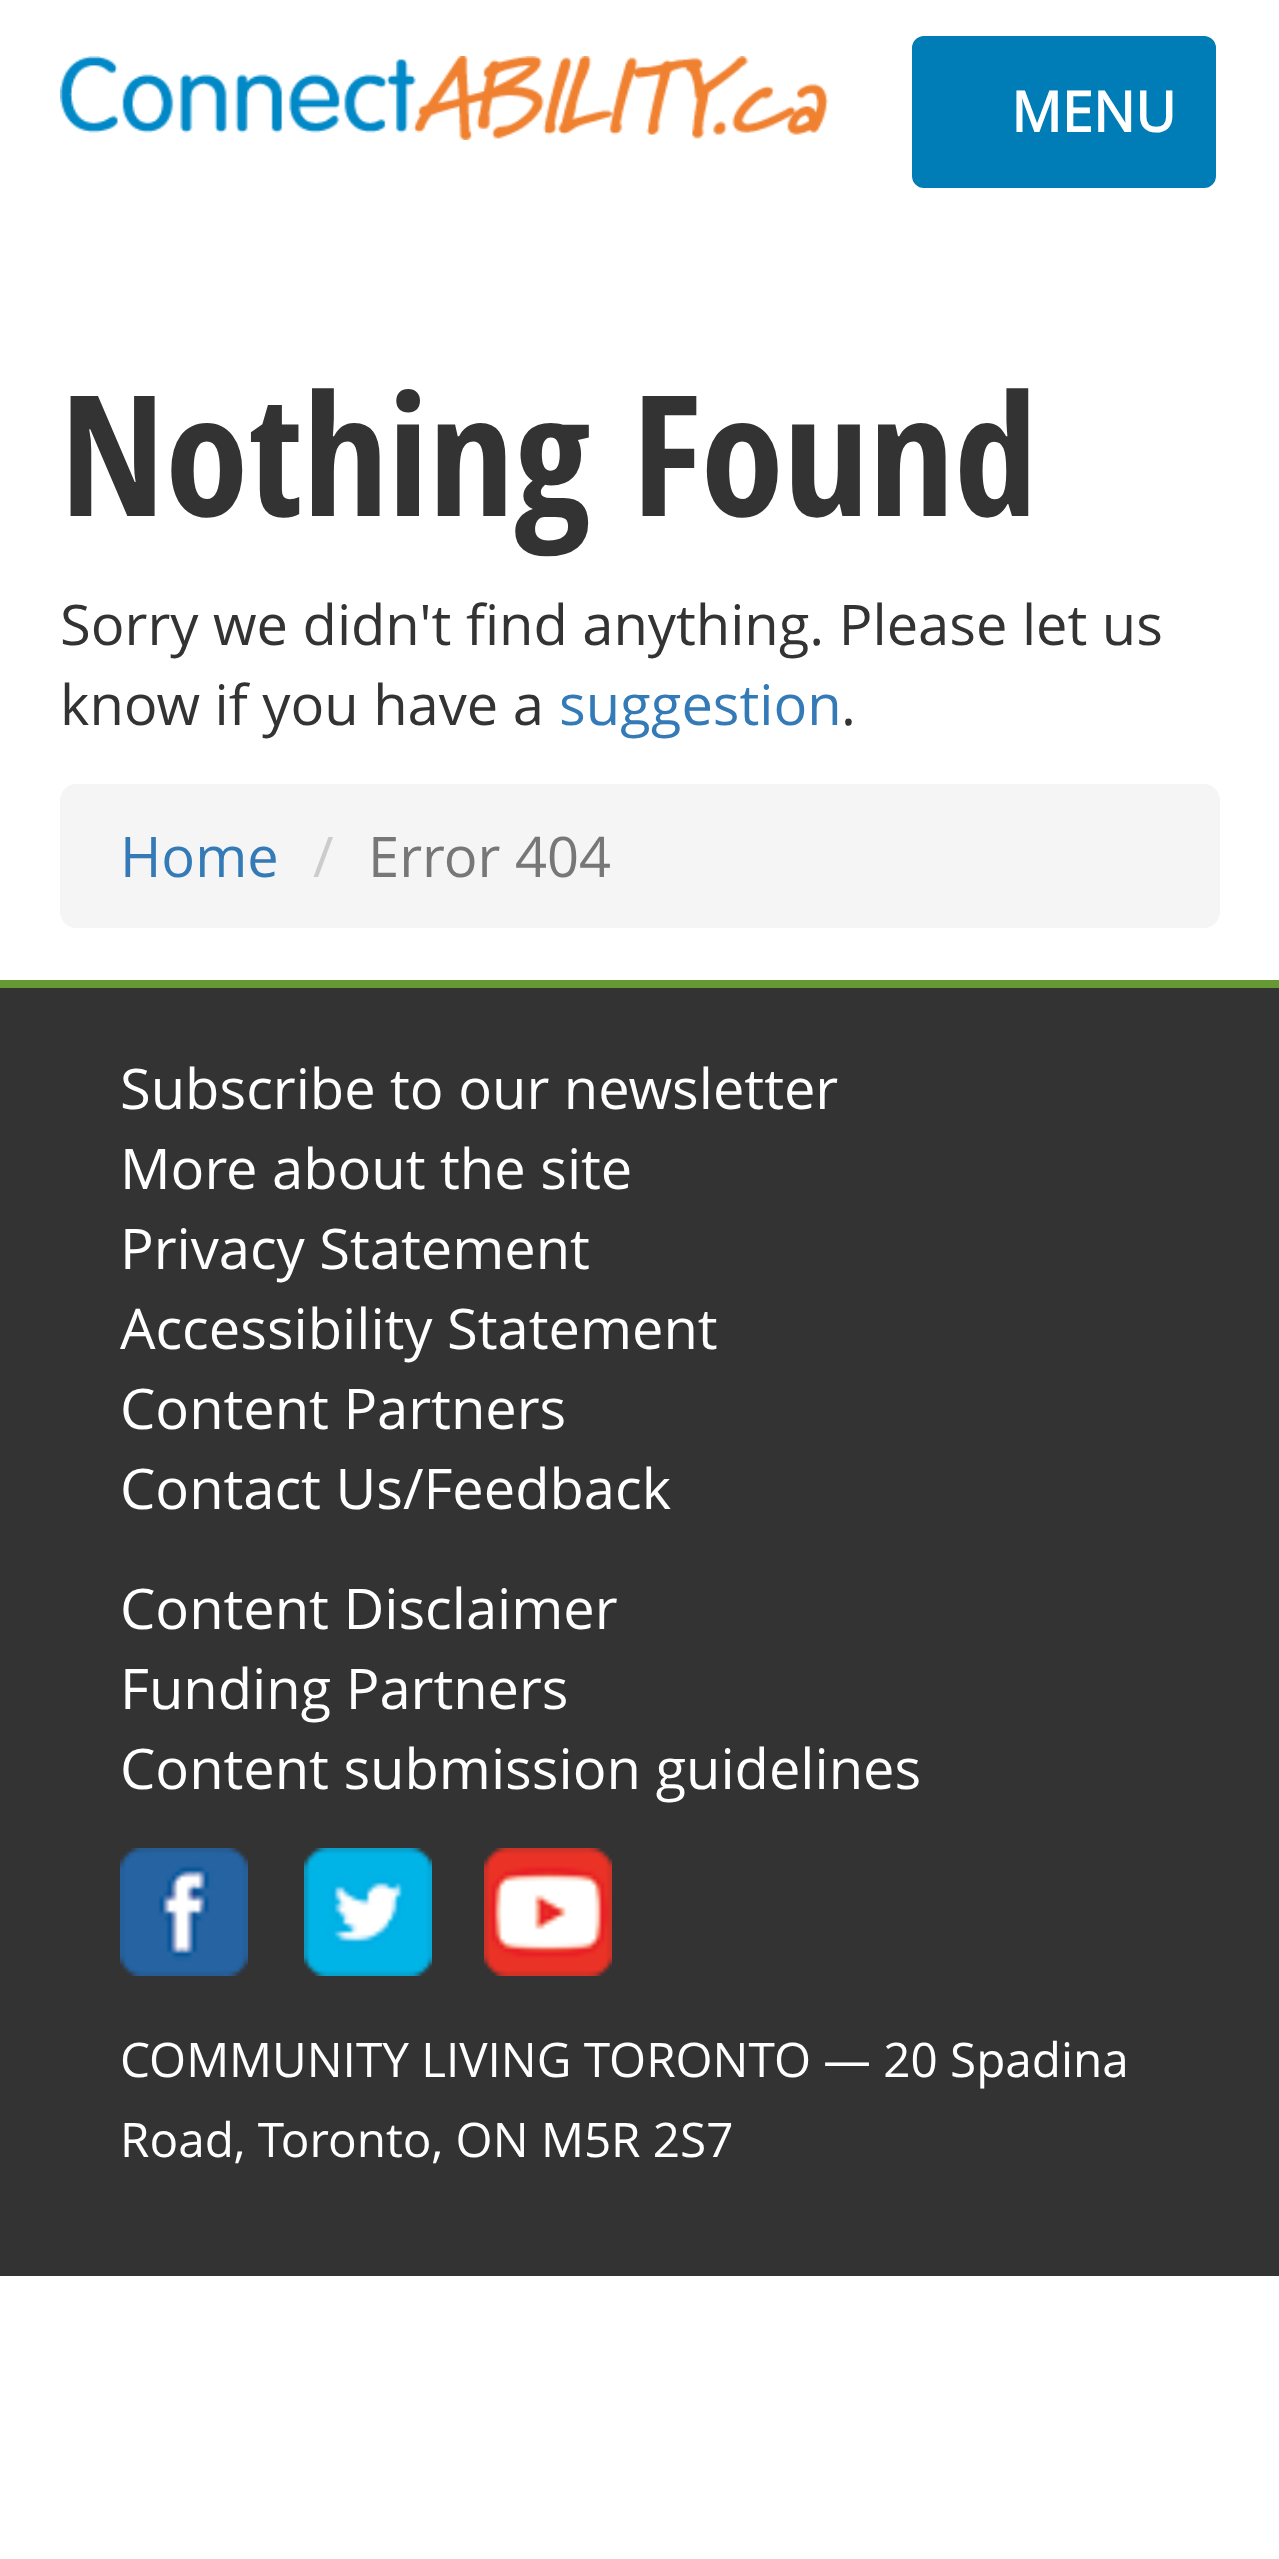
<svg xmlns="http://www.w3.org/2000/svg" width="1279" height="2559">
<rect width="100%" height="100%" fill="#fff"/>
<image x="60" y="56" width="768" height="84" href="media/1.png"/>
<rect x="910" y="34" width="308" height="156" rx="14" fill="#007cb6" stroke="#fff" stroke-width="4"/>
<text x="1011" y="132" style="font-family:Open Sans;font-size:56px;font-weight:bold;fill:#fff">MENU</text>
<text x="60" y="516" style="font-family:Open Sans Condensed;font-size:168px;font-weight:bold;fill:#333">Nothing Found</text>
<text x="60" y="645" style="font-family:Open Sans;font-size:56px;fill:#333">Sorry we didn't find anything. Please let us</text>
<text x="60" y="725" style="font-family:Open Sans;font-size:56px;fill:#333">know if you have a</text>
<text x="559" y="725" style="font-family:Open Sans;font-size:56px;fill:#337ab7">suggestion</text>
<text x="841" y="725" style="font-family:Open Sans;font-size:56px;fill:#333">.</text>
<rect x="60" y="784" width="1160" height="144" rx="16" fill="#f5f5f5"/>
<text x="120" y="877" style="font-family:Open Sans;font-size:56px;fill:#337ab7">Home</text>
<text x="313" y="877" style="font-family:Open Sans;font-size:56px;fill:#ccc">/</text>
<text x="368" y="877" style="font-family:Open Sans;font-size:56px;fill:#777">Error 404</text>
<rect y="980" width="1279" height="8" fill="#693"/>
<rect y="988" width="1279" height="1288" fill="#333"/>
<text x="120" y="1109" style="font-family:Open Sans;font-size:56px;fill:#fff">Subscribe to our newsletter</text>
<text x="120" y="1189" style="font-family:Open Sans;font-size:56px;fill:#fff">More about the site</text>
<text x="120" y="1269" style="font-family:Open Sans;font-size:56px;fill:#fff">Privacy Statement</text>
<text x="120" y="1349" style="font-family:Open Sans;font-size:56px;fill:#fff">Accessibility Statement</text>
<text x="120" y="1429" style="font-family:Open Sans;font-size:56px;fill:#fff">Content Partners</text>
<text x="120" y="1509" style="font-family:Open Sans;font-size:56px;fill:#fff">Contact Us/Feedback</text>
<text x="120" y="1629" style="font-family:Open Sans;font-size:56px;fill:#fff">Content Disclaimer</text>
<text x="120" y="1709" style="font-family:Open Sans;font-size:56px;fill:#fff">Funding Partners</text>
<text x="120" y="1789" style="font-family:Open Sans;font-size:56px;fill:#fff">Content submission guidelines</text>
<image x="120" y="1848" width="128" height="128" href="media/2.png"/>
<image x="304" y="1848" width="128" height="128" href="media/3.png"/>
<image x="484" y="1848" width="128" height="128" href="media/4.png"/>
<text x="120" y="2077" style="font-family:Open Sans;font-size:47.6px;fill:#fff">COMMUNITY LIVING TORONTO — 20 Spadina</text>
<text x="120" y="2157" style="font-family:Open Sans;font-size:47.6px;fill:#fff">Road, Toronto, ON M5R 2S7</text>
</svg>
